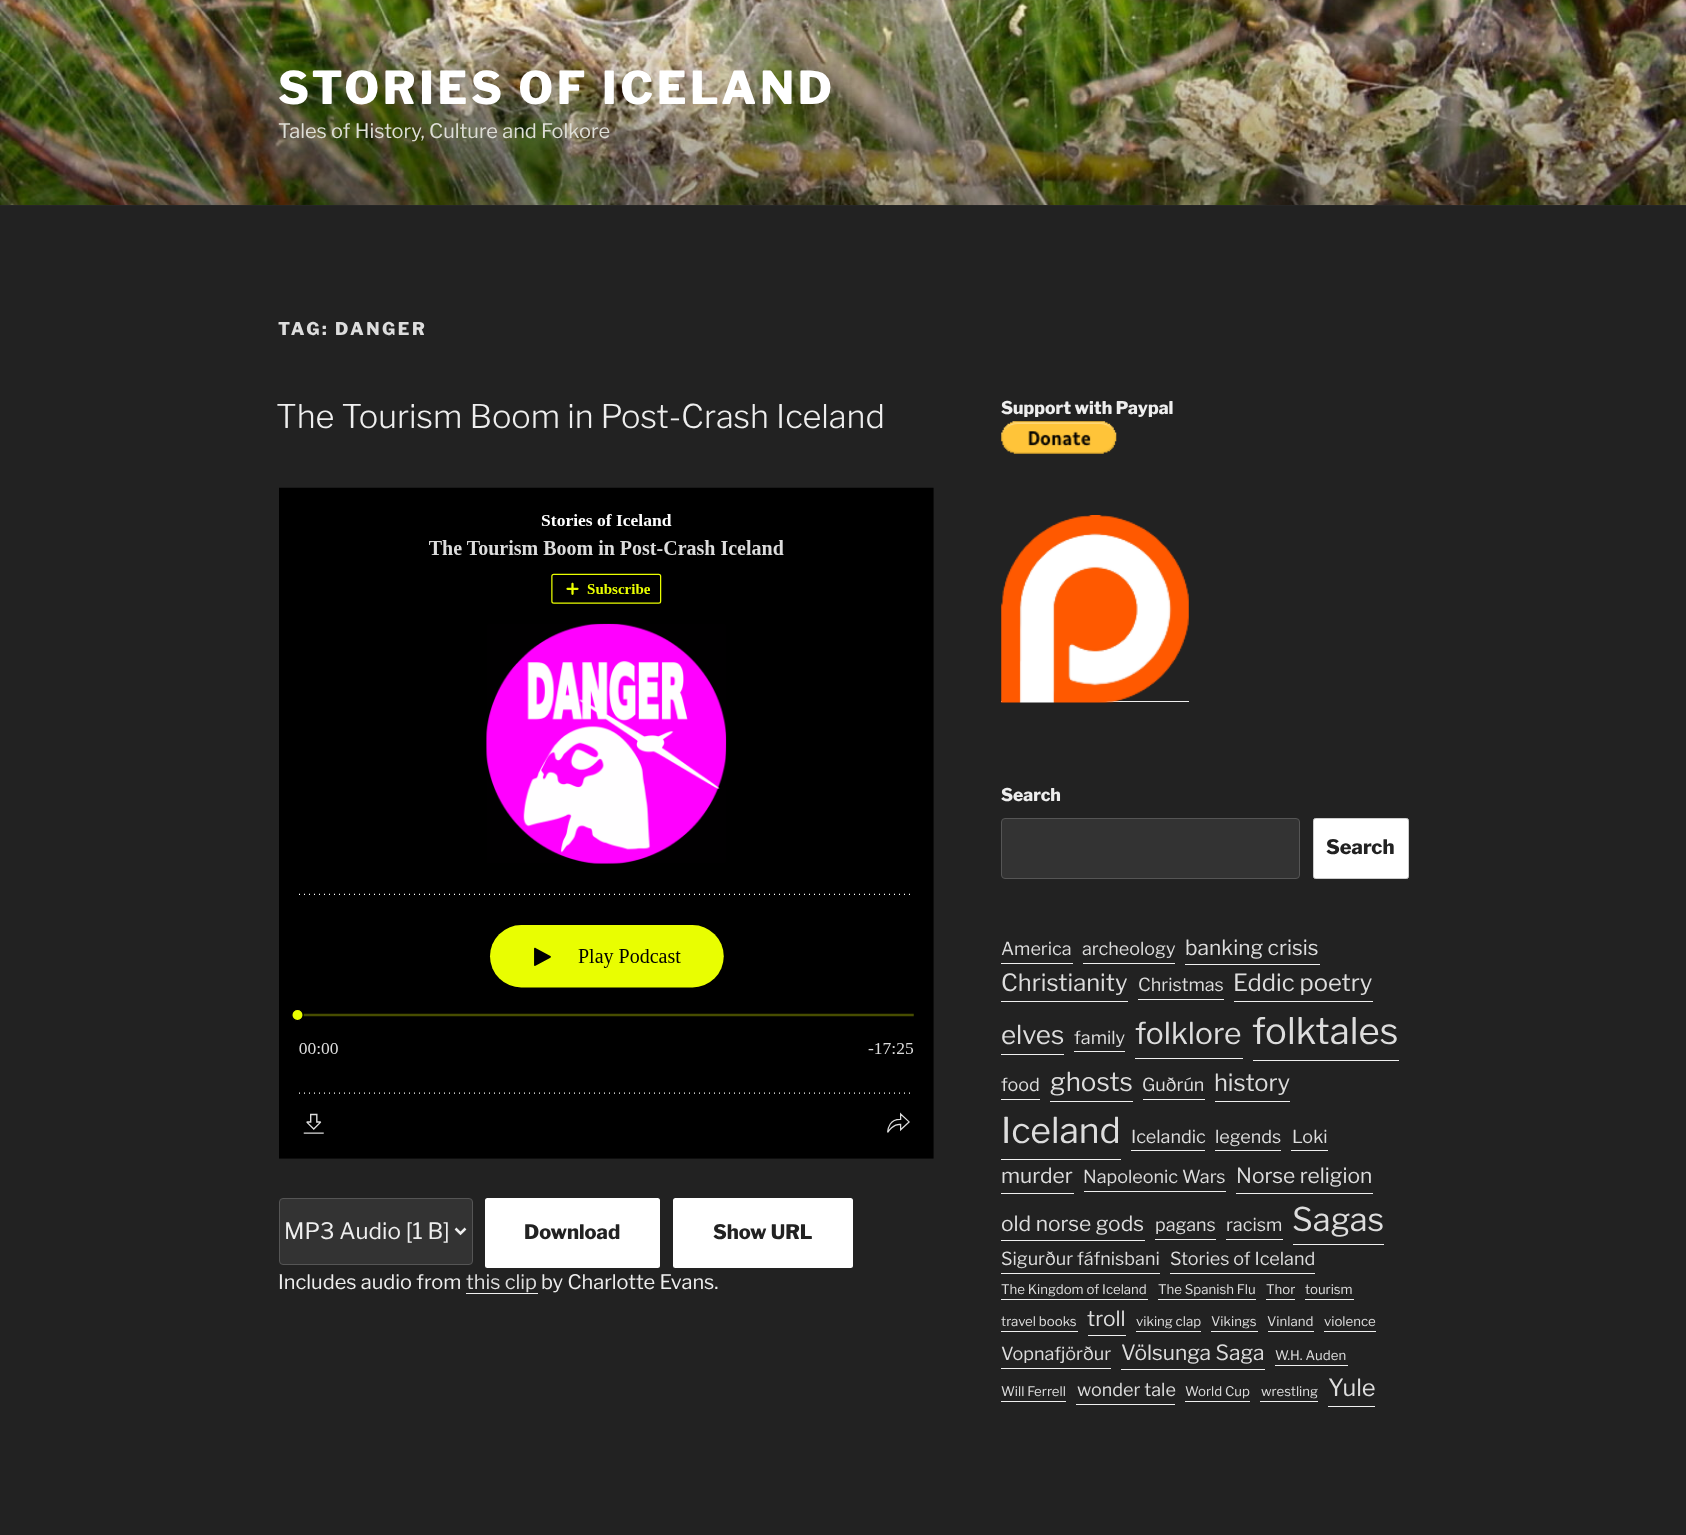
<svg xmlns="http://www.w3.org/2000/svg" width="1686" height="1535">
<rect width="100%" height="100%" fill="#222"/>
<rect y="205" width="1686" height="1" fill="#262626"/>
<image x="0" y="0" width="1686" height="205" href="media/1.png"/>
<text x="278" y="104" style="font-family:'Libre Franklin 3';font-size:45px;font-weight:100;letter-spacing:3.6px;fill:#fff">STORIES OF ICELAND</text>
<text x="278" y="138" style="font-family:'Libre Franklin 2';font-size:20px;font-weight:100;fill:#deded7">Tales of History, Culture and Folkore</text>
<text x="278" y="335" style="font-family:'Libre Franklin 3';font-size:17.5px;font-weight:100;letter-spacing:2.5px;fill:#ddd">TAG: DANGER</text>
<text x="276" y="428" style="font-family:Libre Franklin;font-size:32.5px;font-weight:100;fill:#eee">The Tourism Boom in Post-Crash Iceland</text>
<image x="279" y="487" width="655" height="672" href="media/2.png"/>
<rect x="279.5" y="1198.5" width="193" height="66" rx="3.5" fill="#333" stroke="#555"/>
<path d="M455.5 1228.5l5 5l5-5" fill="none" stroke="#eee" stroke-width="2.5"/>
<text x="284" y="1239" style="font-family:'Libre Franklin 2';font-size:22.5px;font-weight:100;fill:#eee">MP3 Audio [1 B]</text>
<rect x="485" y="1198" width="175" height="70" rx="2.5" fill="#fff"/>
<text x="524" y="1239" style="font-family:'Libre Franklin 3';font-size:20px;font-weight:100;fill:#222">Download</text>
<rect x="673" y="1198" width="180" height="70" rx="2.5" fill="#fff"/>
<text x="713" y="1239" style="font-family:'Libre Franklin 3';font-size:20px;font-weight:100;fill:#222">Show URL</text>
<text x="278" y="1289" style="font-family:'Libre Franklin 2';font-size:20px;font-weight:100;fill:#eee">Includes audio from</text>
<text x="466" y="1289" style="font-family:'Libre Franklin 2';font-size:20px;font-weight:100;fill:#ddd">this clip</text>
<rect x="466" y="1293" width="72" height="1" fill="#f0f0f0"/>
<text x="541" y="1289" style="font-family:'Libre Franklin 2';font-size:20px;font-weight:100;fill:#eee">by Charlotte Evans.</text>
<text x="1001" y="414" style="font-family:'Libre Franklin 3';font-size:17.5px;font-weight:100;fill:#eee">Support with Paypal</text>
<image x="1001" y="421" width="116" height="33" href="media/3.png"/>
<rect x="1001" y="701" width="188" height="1" fill="#f0f0f0"/>
<image x="1001" y="515" width="188" height="188" href="media/4.png"/>
<text x="1001" y="801" style="font-family:'Libre Franklin 3';font-size:17.5px;font-weight:100;fill:#eee">Search</text>
<rect x="1001.5" y="818.5" width="298" height="60" rx="3.5" fill="#333" stroke="#555"/>
<rect x="1313.5" y="818.5" width="95" height="60" rx="2" fill="#fff" stroke="#ccc"/>
<text x="1326" y="854" style="font-family:'Libre Franklin 3';font-size:20px;font-weight:100;fill:#222">Search</text>
<rect x="1001" y="963" width="72" height="1" fill="#f0f0f0"/>
<text x="1001" y="955" style="font-family:'Libre Franklin 2';font-size:18px;font-weight:100;fill:#ddd">America</text>
<rect x="1083" y="963" width="92" height="1" fill="#f0f0f0"/>
<text x="1082" y="955" style="font-family:'Libre Franklin 2';font-size:18px;font-weight:100;fill:#ddd">archeology</text>
<rect x="1185" y="964" width="135" height="1" fill="#f0f0f0"/>
<text x="1185" y="955" style="font-family:'Libre Franklin 2';font-size:21px;font-weight:100;fill:#ddd">banking crisis</text>
<rect x="1001" y="1001" width="127" height="1" fill="#f0f0f0"/>
<text x="1001" y="991" style="font-family:'Libre Franklin 2';font-size:23.75px;font-weight:100;fill:#ddd">Christianity</text>
<rect x="1138" y="999" width="86" height="1" fill="#f0f0f0"/>
<text x="1138" y="991" style="font-family:'Libre Franklin 2';font-size:18px;font-weight:100;fill:#ddd">Christmas</text>
<rect x="1234" y="1001" width="139" height="1" fill="#f0f0f0"/>
<text x="1233" y="991" style="font-family:'Libre Franklin 2';font-size:23.75px;font-weight:100;fill:#ddd">Eddic poetry</text>
<rect x="1001" y="1054" width="63" height="1" fill="#f0f0f0"/>
<text x="1001" y="1044" style="font-family:'Libre Franklin 2';font-size:26px;font-weight:100;fill:#ddd">elves</text>
<rect x="1074" y="1051" width="51" height="1" fill="#f0f0f0"/>
<text x="1074" y="1044" style="font-family:'Libre Franklin 2';font-size:18px;font-weight:100;fill:#ddd">family</text>
<rect x="1135" y="1058" width="108" height="1" fill="#f0f0f0"/>
<text x="1135" y="1044" style="font-family:'Libre Franklin 2';font-size:30px;font-weight:100;fill:#ddd">folklore</text>
<rect x="1253" y="1060" width="146" height="1" fill="#f0f0f0"/>
<text x="1252" y="1044" style="font-family:'Libre Franklin 2';font-size:36.5px;font-weight:100;fill:#ddd">folktales</text>
<rect x="1001" y="1099" width="39" height="1" fill="#f0f0f0"/>
<text x="1001" y="1091" style="font-family:'Libre Franklin 2';font-size:18px;font-weight:100;fill:#ddd">food</text>
<rect x="1050" y="1101" width="83" height="1" fill="#f0f0f0"/>
<text x="1050" y="1091" style="font-family:'Libre Franklin 2';font-size:26px;font-weight:100;fill:#ddd">ghosts</text>
<rect x="1143" y="1099" width="62" height="1" fill="#f0f0f0"/>
<text x="1142" y="1091" style="font-family:'Libre Franklin 2';font-size:18px;font-weight:100;fill:#ddd">Guðrún</text>
<rect x="1215" y="1101" width="75" height="1" fill="#f0f0f0"/>
<text x="1214" y="1091" style="font-family:'Libre Franklin 2';font-size:23.75px;font-weight:100;fill:#ddd">history</text>
<rect x="1001" y="1159" width="120" height="1" fill="#f0f0f0"/>
<text x="1001" y="1143" style="font-family:'Libre Franklin 2';font-size:35.5px;font-weight:100;fill:#ddd">Iceland</text>
<rect x="1131" y="1150" width="74" height="1" fill="#f0f0f0"/>
<text x="1131" y="1143" style="font-family:'Libre Franklin 2';font-size:18px;font-weight:100;fill:#ddd">Icelandic</text>
<rect x="1215" y="1150" width="66" height="1" fill="#f0f0f0"/>
<text x="1215" y="1143" style="font-family:'Libre Franklin 2';font-size:18px;font-weight:100;fill:#ddd">legends</text>
<rect x="1291" y="1150" width="37" height="1" fill="#f0f0f0"/>
<text x="1292" y="1143" style="font-family:'Libre Franklin 2';font-size:18px;font-weight:100;fill:#ddd">Loki</text>
<rect x="1001" y="1193" width="73" height="1" fill="#f0f0f0"/>
<text x="1001" y="1183" style="font-family:'Libre Franklin 2';font-size:21px;font-weight:100;fill:#ddd">murder</text>
<rect x="1084" y="1191" width="142" height="1" fill="#f0f0f0"/>
<text x="1083" y="1183" style="font-family:'Libre Franklin 2';font-size:18px;font-weight:100;fill:#ddd">Napoleonic Wars</text>
<rect x="1236" y="1193" width="137" height="1" fill="#f0f0f0"/>
<text x="1236" y="1183" style="font-family:'Libre Franklin 2';font-size:21px;font-weight:100;fill:#ddd">Norse religion</text>
<rect x="1001" y="1240" width="144" height="1" fill="#f0f0f0"/>
<text x="1001" y="1231" style="font-family:'Libre Franklin 2';font-size:21px;font-weight:100;fill:#ddd">old norse gods</text>
<rect x="1155" y="1239" width="61" height="1" fill="#f0f0f0"/>
<text x="1155" y="1231" style="font-family:'Libre Franklin 2';font-size:18px;font-weight:100;fill:#ddd">pagans</text>
<rect x="1226" y="1239" width="57" height="1" fill="#f0f0f0"/>
<text x="1226" y="1231" style="font-family:'Libre Franklin 2';font-size:18px;font-weight:100;fill:#ddd">racism</text>
<rect x="1293" y="1244" width="91" height="1" fill="#f0f0f0"/>
<text x="1292" y="1231" style="font-family:'Libre Franklin 2';font-size:32.5px;font-weight:100;fill:#ddd">Sagas</text>
<rect x="1001" y="1273" width="159" height="1" fill="#f0f0f0"/>
<text x="1001" y="1265" style="font-family:'Libre Franklin 2';font-size:18px;font-weight:100;fill:#ddd">Sigurður fáfnisbani</text>
<rect x="1170" y="1273" width="145" height="1" fill="#f0f0f0"/>
<text x="1170" y="1265" style="font-family:'Libre Franklin 2';font-size:18px;font-weight:100;fill:#ddd">Stories of Iceland</text>
<rect x="1001" y="1299" width="147" height="1" fill="#f0f0f0"/>
<text x="1001" y="1294" style="font-family:'Libre Franklin 2';font-size:13.25px;font-weight:100;fill:#ddd">The Kingdom of Iceland</text>
<rect x="1158" y="1299" width="98" height="1" fill="#f0f0f0"/>
<text x="1158" y="1294" style="font-family:'Libre Franklin 2';font-size:13.25px;font-weight:100;fill:#ddd">The Spanish Flu</text>
<rect x="1266" y="1299" width="29" height="1" fill="#f0f0f0"/>
<text x="1266" y="1294" style="font-family:'Libre Franklin 2';font-size:13.25px;font-weight:100;fill:#ddd">Thor</text>
<rect x="1305" y="1299" width="49" height="1" fill="#f0f0f0"/>
<text x="1305" y="1294" style="font-family:'Libre Franklin 2';font-size:13.25px;font-weight:100;fill:#ddd">tourism</text>
<rect x="1001" y="1331" width="77" height="1" fill="#f0f0f0"/>
<text x="1001" y="1326" style="font-family:'Libre Franklin 2';font-size:13.25px;font-weight:100;fill:#ddd">travel books</text>
<rect x="1088" y="1335" width="38" height="1" fill="#f0f0f0"/>
<text x="1087" y="1326" style="font-family:'Libre Franklin 2';font-size:21px;font-weight:100;fill:#ddd">troll</text>
<rect x="1136" y="1331" width="65" height="1" fill="#f0f0f0"/>
<text x="1136" y="1326" style="font-family:'Libre Franklin 2';font-size:13.25px;font-weight:100;fill:#ddd">viking clap</text>
<rect x="1211" y="1331" width="47" height="1" fill="#f0f0f0"/>
<text x="1211" y="1326" style="font-family:'Libre Franklin 2';font-size:13.25px;font-weight:100;fill:#ddd">Vikings</text>
<rect x="1268" y="1331" width="46" height="1" fill="#f0f0f0"/>
<text x="1267" y="1326" style="font-family:'Libre Franklin 2';font-size:13.25px;font-weight:100;fill:#ddd">Vinland</text>
<rect x="1324" y="1331" width="52" height="1" fill="#f0f0f0"/>
<text x="1324" y="1326" style="font-family:'Libre Franklin 2';font-size:13.25px;font-weight:100;fill:#ddd">violence</text>
<rect x="1001" y="1368" width="110" height="1" fill="#f0f0f0"/>
<text x="1001" y="1360" style="font-family:'Libre Franklin 2';font-size:18px;font-weight:100;fill:#ddd">Vopnafjörður</text>
<rect x="1121" y="1369" width="144" height="1" fill="#f0f0f0"/>
<text x="1121" y="1360" style="font-family:'Libre Franklin 2';font-size:21px;font-weight:100;fill:#ddd">Völsunga Saga</text>
<rect x="1275" y="1365" width="73" height="1" fill="#f0f0f0"/>
<text x="1275" y="1360" style="font-family:'Libre Franklin 2';font-size:13.25px;font-weight:100;fill:#ddd">W.H. Auden</text>
<rect x="1001" y="1401" width="65" height="1" fill="#f0f0f0"/>
<text x="1001" y="1396" style="font-family:'Libre Franklin 2';font-size:13.25px;font-weight:100;fill:#ddd">Will Ferrell</text>
<rect x="1076" y="1404" width="99" height="1" fill="#f0f0f0"/>
<text x="1077" y="1396" style="font-family:'Libre Franklin 2';font-size:18px;font-weight:100;fill:#ddd">wonder tale</text>
<rect x="1185" y="1401" width="65" height="1" fill="#f0f0f0"/>
<text x="1185" y="1396" style="font-family:'Libre Franklin 2';font-size:13.25px;font-weight:100;fill:#ddd">World Cup</text>
<rect x="1260" y="1401" width="58" height="1" fill="#f0f0f0"/>
<text x="1261" y="1396" style="font-family:'Libre Franklin 2';font-size:13.25px;font-weight:100;fill:#ddd">wrestling</text>
<rect x="1328" y="1406" width="47" height="1" fill="#f0f0f0"/>
<text x="1328" y="1396" style="font-family:'Libre Franklin 2';font-size:23.75px;font-weight:100;fill:#ddd">Yule</text>
</svg>
